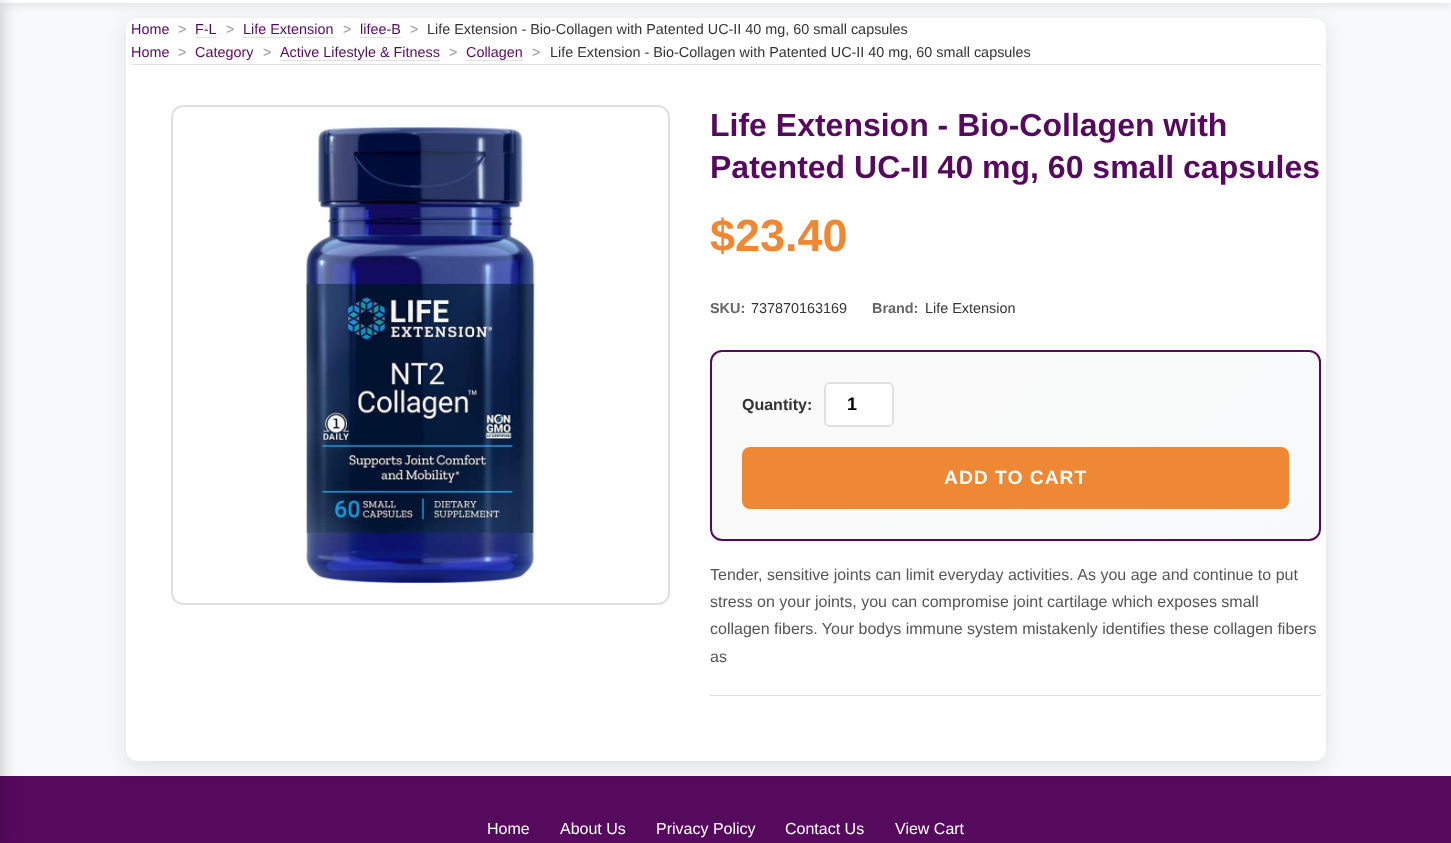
<svg xmlns="http://www.w3.org/2000/svg" width="1451" height="843">
<defs>
<clipPath id="clip1"><rect x="710" y="350" width="611" height="191" rx="12"/></clipPath>
<linearGradient id="g1" gradientUnits="userSpaceOnUse" x1="817" y1="247" x2="1214" y2="644"><stop offset="0" stop-color="#fafafa"/><stop offset="1" stop-color="#f8f9fa"/></linearGradient>
</defs>
<rect width="100%" height="100%" fill="#f8f9fa"/>
<rect y="-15" width="1451" height="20" fill="#0000001a" filter="blur(5px)"/>
<rect width="1451" height="3" fill="#fff"/>
<rect y="776" width="1451" height="67" fill="#560a5e"/>
<rect x="-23" width="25" height="843" fill="#00000033" filter="blur(7.5px)"/>
<rect x="126" y="23" width="1200" height="743" rx="12" fill="#0000001a" filter="blur(10px)"/>
<rect x="126" y="18" width="1200" height="743" rx="12" fill="#fff"/>
<rect x="131" y="64" width="1190" height="1" fill="#e0e0e0"/>
<text x="131" y="34" style="font-family:Liberation Sans;font-size:14.4px;fill:#560a5e">Home</text>
<text x="178" y="34" style="font-family:Liberation Sans;font-size:14.4px;fill:#999">&gt;</text>
<text x="195" y="34" style="font-family:Liberation Sans;font-size:14.4px;fill:#560a5e">F-L</text>
<rect x="195" y="37" width="22" height="1" fill="#e0e0e0"/>
<text x="226" y="34" style="font-family:Liberation Sans;font-size:14.4px;fill:#999">&gt;</text>
<text x="243" y="34" style="font-family:Liberation Sans;font-size:14.4px;fill:#560a5e">Life Extension</text>
<rect x="243" y="37" width="91" height="1" fill="#e0e0e0"/>
<text x="343" y="34" style="font-family:Liberation Sans;font-size:14.4px;fill:#999">&gt;</text>
<text x="360" y="34" style="font-family:Liberation Sans;font-size:14.4px;fill:#560a5e">lifee-B</text>
<rect x="360" y="37" width="41" height="1" fill="#e0e0e0"/>
<text x="410" y="34" style="font-family:Liberation Sans;font-size:14.4px;fill:#999">&gt;</text>
<text x="427" y="34" style="font-family:Liberation Sans;font-size:14.4px;fill:#333">Life Extension - Bio-Collagen with Patented UC-II 40 mg, 60 small capsules</text>
<text x="131" y="57" style="font-family:Liberation Sans;font-size:14.4px;fill:#560a5e">Home</text>
<text x="178" y="57" style="font-family:Liberation Sans;font-size:14.4px;fill:#999">&gt;</text>
<text x="195" y="57" style="font-family:Liberation Sans;font-size:14.4px;fill:#560a5e">Category</text>
<text x="263" y="57" style="font-family:Liberation Sans;font-size:14.4px;fill:#999">&gt;</text>
<text x="280" y="57" style="font-family:Liberation Sans;font-size:14.4px;fill:#560a5e">Active Lifestyle &amp; Fitness</text>
<rect x="280" y="60" width="160" height="1" fill="#e0e0e0"/>
<text x="449" y="57" style="font-family:Liberation Sans;font-size:14.4px;fill:#999">&gt;</text>
<text x="466" y="57" style="font-family:Liberation Sans;font-size:14.4px;fill:#560a5e">Collagen</text>
<rect x="466" y="60" width="57" height="1" fill="#e0e0e0"/>
<text x="532" y="57" style="font-family:Liberation Sans;font-size:14.4px;fill:#999">&gt;</text>
<text x="550" y="57" style="font-family:Liberation Sans;font-size:14.4px;fill:#333">Life Extension - Bio-Collagen with Patented UC-II 40 mg, 60 small capsules</text>
<rect x="172" y="106" width="497" height="498" rx="11" fill="none" stroke="#e0e0e0" stroke-width="2"/>
<image x="305" y="127" width="231" height="456" href="media/1.png"/>
<text x="710" y="136" style="font-family:Liberation Sans;font-size:32px;font-weight:bold;fill:#560a5e">Life Extension - Bio-Collagen with</text>
<text x="710" y="178" style="font-family:Liberation Sans;font-size:32px;font-weight:bold;fill:#560a5e">Patented UC-II 40 mg, 60 small capsules</text>
<text x="710" y="251" style="font-family:Liberation Sans;font-size:45px;font-weight:bold;fill:#ef8834">$23.40</text>
<text x="710" y="313" style="font-family:Liberation Sans;font-size:14.4px;font-weight:bold;fill:#666">SKU:</text>
<text x="751" y="313" style="font-family:Liberation Sans;font-size:14.4px;fill:#333">737870163169</text>
<text x="872" y="313" style="font-family:Liberation Sans;font-size:14.4px;font-weight:bold;fill:#666">Brand:</text>
<text x="925" y="313" style="font-family:Liberation Sans;font-size:14.4px;fill:#333">Life Extension</text>
<g clip-path="url(#clip1)">
<rect x="712" y="352" width="607" height="187" fill="url(#g1)"/>
</g>
<rect x="711" y="351" width="609" height="189" rx="11" fill="none" stroke="#560a5e" stroke-width="2"/>
<text x="742" y="410" style="font-family:Liberation Sans;font-size:16px;font-weight:bold;fill:#333">Quantity:</text>
<rect x="825" y="383" width="68" height="43" rx="5" fill="#fff" stroke="#e0e0e0" stroke-width="2"/>
<text x="847" y="410" style="font-family:Liberation Sans;font-size:18px;font-weight:bold;fill:#000">1</text>
<rect x="742" y="447" width="547" height="62" rx="8" fill="#ef8834"/>
<text x="944" y="484" style="font-family:Liberation Sans;font-size:19.25px;font-weight:bold;letter-spacing:1px;fill:#fff">ADD TO CART</text>
<rect x="710" y="695" width="611" height="1" fill="#e0e0e0"/>
<text x="710" y="580" style="font-family:Liberation Sans;font-size:16px;fill:#555">Tender, sensitive joints can limit everyday activities. As you age and continue to put</text>
<text x="710" y="607" style="font-family:Liberation Sans;font-size:16px;fill:#555">stress on your joints, you can compromise joint cartilage which exposes small</text>
<text x="710" y="634" style="font-family:Liberation Sans;font-size:16px;fill:#555">collagen fibers. Your bodys immune system mistakenly identifies these collagen fibers</text>
<text x="710" y="662" style="font-family:Liberation Sans;font-size:16px;fill:#555">as</text>
<text x="487" y="834" style="font-family:Liberation Sans;font-size:16px;fill:#fff">Home</text>
<text x="560" y="834" style="font-family:Liberation Sans;font-size:16px;fill:#fff">About Us</text>
<text x="656" y="834" style="font-family:Liberation Sans;font-size:16px;fill:#fff">Privacy Policy</text>
<text x="785" y="834" style="font-family:Liberation Sans;font-size:16px;fill:#fff">Contact Us</text>
<text x="895" y="834" style="font-family:Liberation Sans;font-size:16px;fill:#fff">View Cart</text>
</svg>
